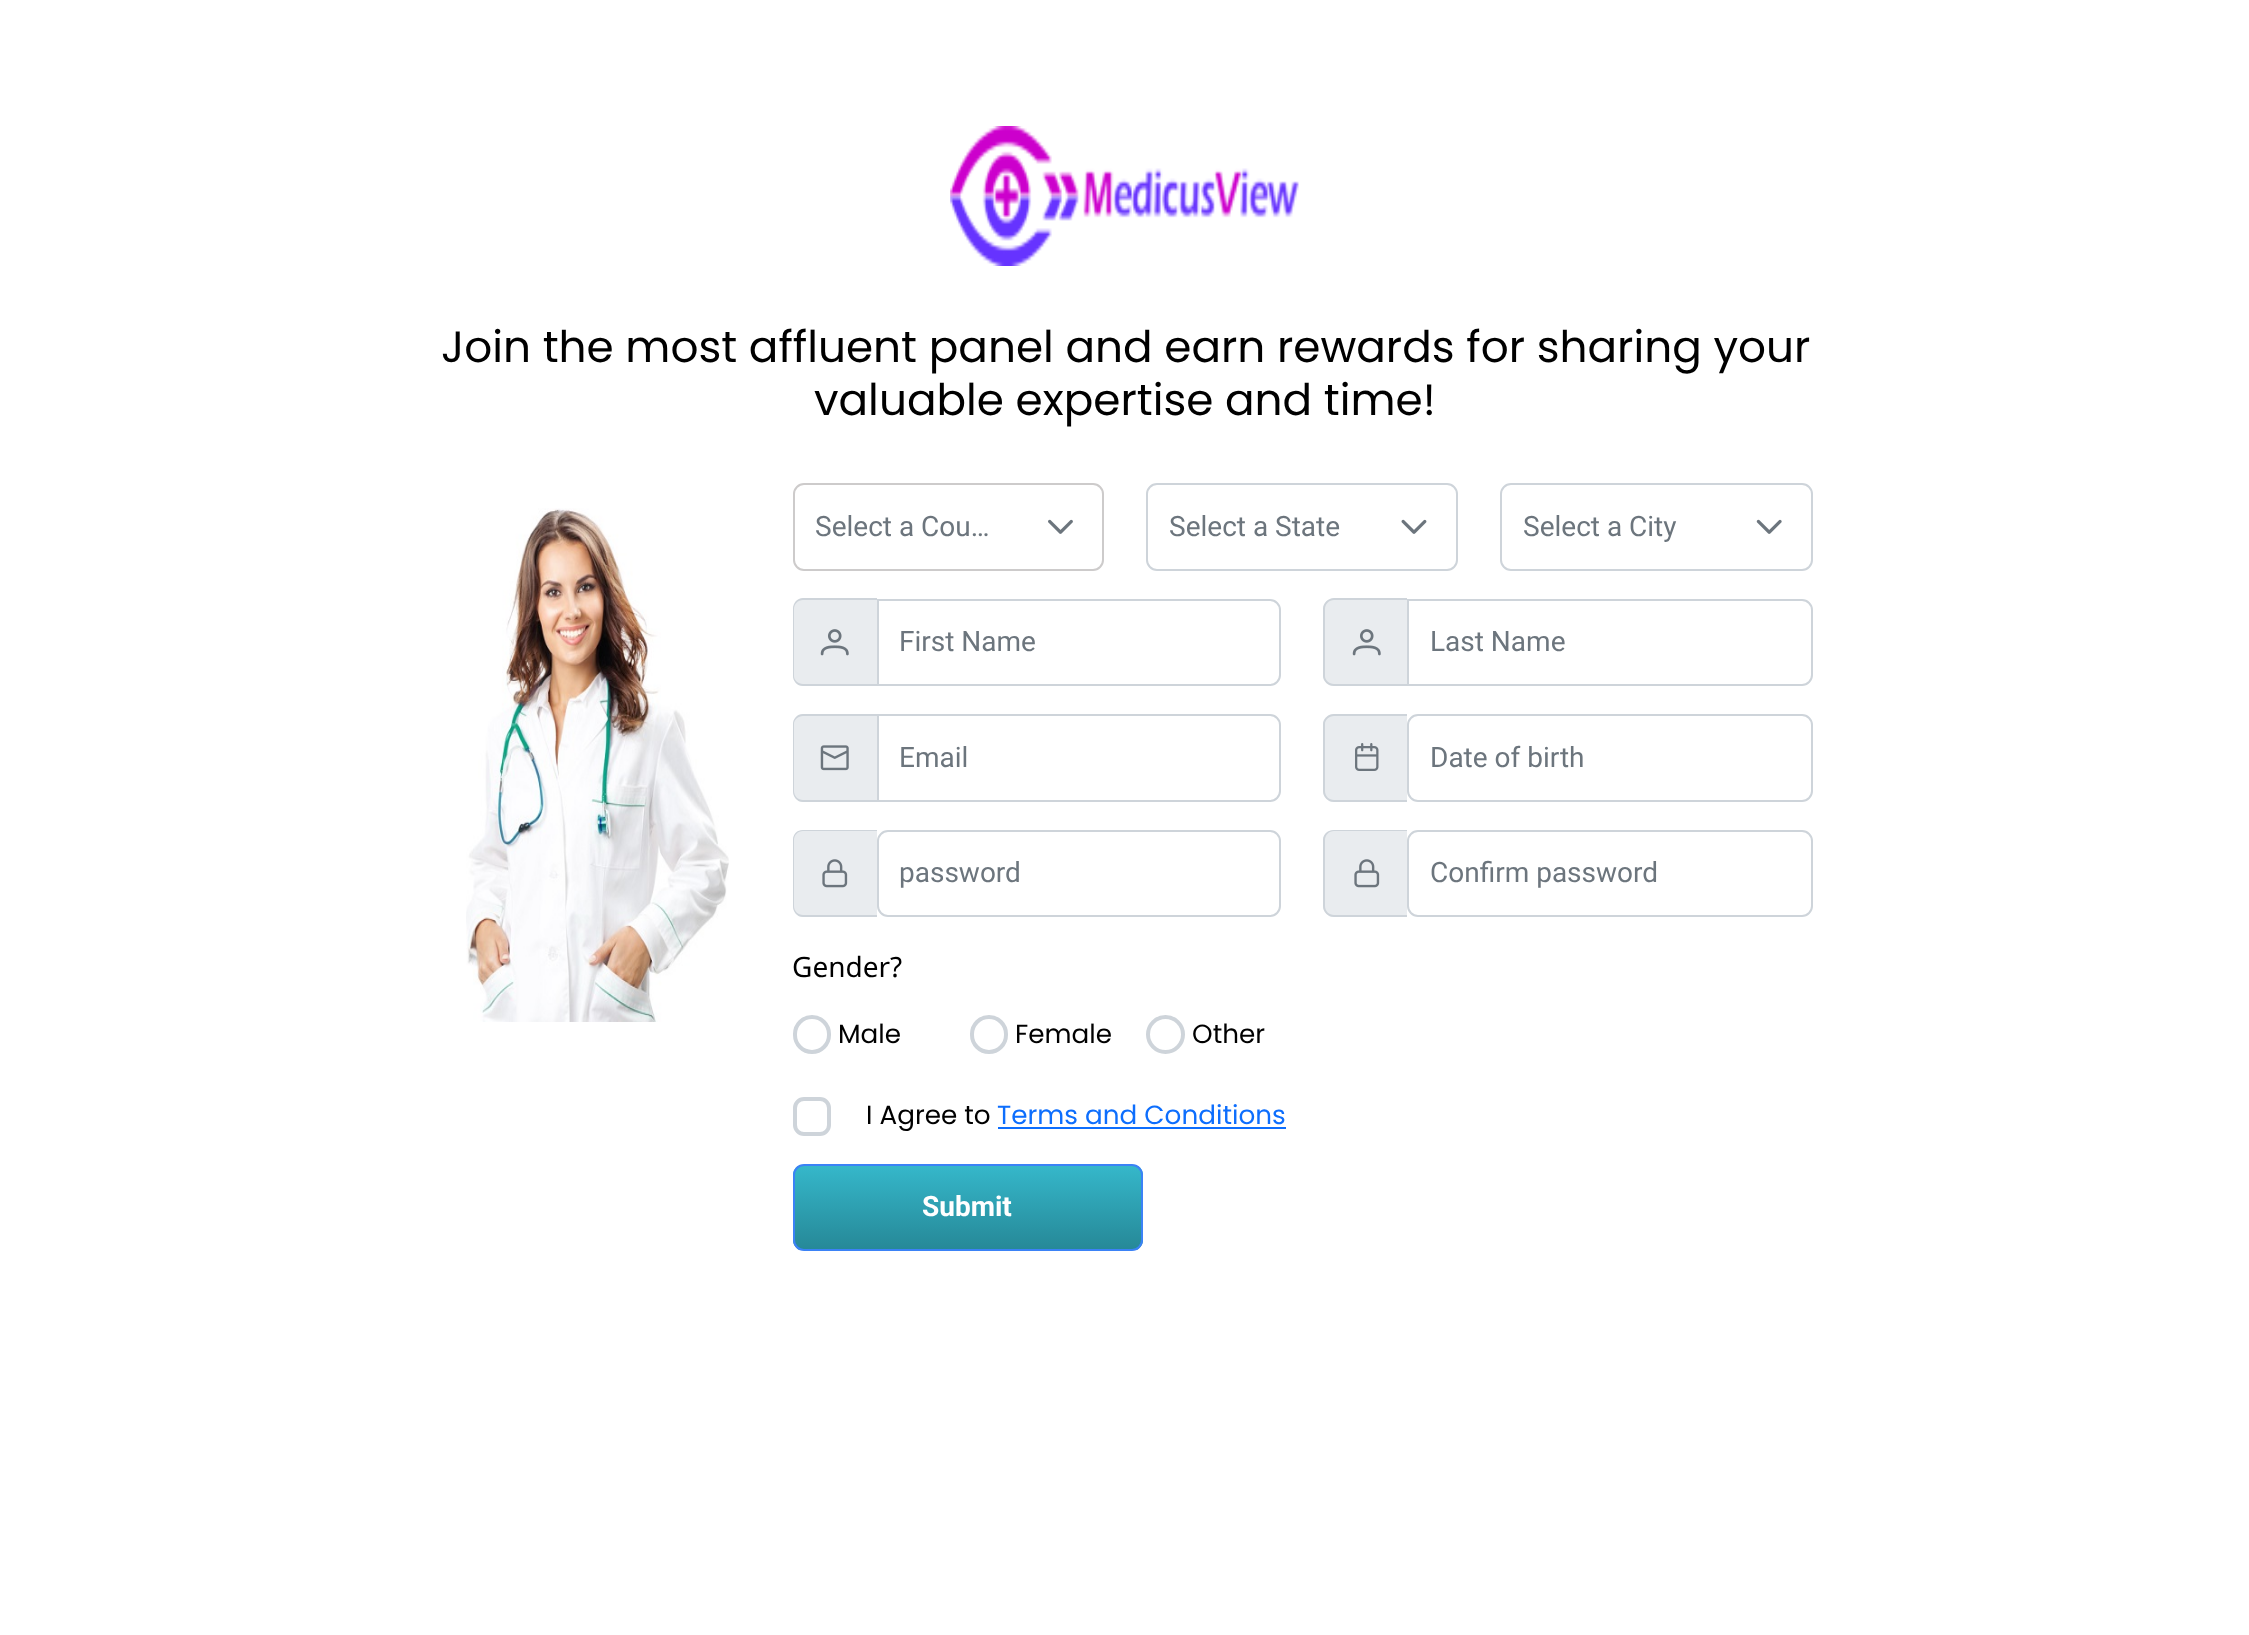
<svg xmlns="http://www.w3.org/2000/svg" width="2249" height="1635">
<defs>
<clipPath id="clip1"><rect x="793" y="1164" width="350" height="87" rx="11"/></clipPath>
<linearGradient id="g1" gradientUnits="userSpaceOnUse" x1="968" y1="1166" x2="968" y2="1250"><stop offset="0" stop-color="#35b7ca"/><stop offset="1" stop-color="#268897"/></linearGradient>
</defs>
<rect width="100%" height="100%" fill="#fff"/>
<image x="950" y="126" width="349" height="140" href="media/1.png"/>
<text x="441" y="362" style="font-family:Poppins;font-size:43.75px;fill:#000">Join the most affluent panel and earn rewards for sharing your</text>
<text x="814" y="415" style="font-family:Poppins;font-size:43.75px;fill:#000">valuable expertise and time!</text>
<image x="466" y="508" width="263" height="514" href="media/2.png"/>
<rect x="794" y="484" width="309" height="86" rx="10" fill="none" stroke="#cdcbcb" stroke-width="2"/>
<text x="815" y="536" style="font-family:Roboto;font-size:28px;fill:#6c757d">Select a Cou…</text>
<image x="1048" y="519" width="25" height="15" href="media/3.png"/>
<rect x="1147" y="484" width="310" height="86" rx="10" fill="none" stroke="#ced4da" stroke-width="2"/>
<text x="1169" y="536" style="font-family:Roboto;font-size:28px;fill:#6c757d">Select a State</text>
<image x="1401" y="519" width="26" height="15" href="media/4.png"/>
<rect x="1501" y="484" width="311" height="86" rx="10" fill="none" stroke="#ced4da" stroke-width="2"/>
<text x="1523" y="536" style="font-family:Roboto;font-size:28px;fill:#6c757d">Select a City</text>
<image x="1756" y="519" width="26" height="15" href="media/5.png"/>
<path d="M804 599h73v87h-73c-6 0-11-5-11-11v-65c0-6 5-11 11-11z" fill="#e9ecef"/>
<path d="M803 598h74v88h-74c-6 0-10-5-10-10v-67c0-6 4-11 10-11zm0 2h74v84h-74c-5 0-9-4-9-8v-67c0-5 4-9 9-9z" fill="#ced4da" fill-rule="evenodd"/>
<image x="820" y="629" width="29" height="27" href="media/6.png"/>
<path d="M878 600h392c5.5 0 10 4.5 10 10v65c0 5.5-4.5 10-10 10h-392z" fill="none" stroke="#ced4da" stroke-width="2"/>
<text x="899" y="651" style="font-family:Roboto;font-size:28px;fill:#6c757d">First Name</text>
<path d="M1334 599h73v87h-73c-6 0-11-5-11-11v-65c0-6 5-11 11-11z" fill="#e9ecef"/>
<path d="M1334 598h73v88h-73c-6 0-11-5-11-10v-67c0-6 5-11 11-11zm0 2h73v84h-73c-5 0-9-4-9-8v-67c0-5 4-9 9-9z" fill="#ced4da" fill-rule="evenodd"/>
<image x="1352" y="629" width="29" height="27" href="media/6.png"/>
<path d="M1408 600h394c5.5 0 10 4.5 10 10v65c0 5.5-4.5 10-10 10h-394z" fill="none" stroke="#ced4da" stroke-width="2"/>
<text x="1430" y="651" style="font-family:Roboto;font-size:28px;fill:#6c757d">Last Name</text>
<path d="M804 714h73v88h-73c-6 0-11-5-11-11v-66c0-6 5-11 11-11z" fill="#e9ecef"/>
<path d="M803 714h74v88h-74c-6 0-10-5-10-11v-67c0-5 4-10 10-10zm0 2h74v84h-74c-5 0-9-4-9-9v-67c0-4 4-8 9-8z" fill="#ced4da" fill-rule="evenodd"/>
<image x="820" y="745" width="29" height="26" href="media/7.png"/>
<path d="M878 715h392c5.5 0 10 4.5 10 10v66c0 5.5-4.5 10-10 10h-392z" fill="none" stroke="#ced4da" stroke-width="2"/>
<text x="899" y="767" style="font-family:Roboto;font-size:28px;fill:#6c757d">Email</text>
<path d="M1334 714h73v88h-73c-6 0-11-5-11-11v-66c0-6 5-11 11-11z" fill="#e9ecef"/>
<path d="M1334 714h73v88h-73c-6 0-11-5-11-11v-67c0-5 5-10 11-10zm0 2h73v84h-73c-5 0-9-4-9-9v-67c0-4 4-8 9-8z" fill="#ced4da" fill-rule="evenodd"/>
<image x="1355" y="743" width="24" height="28" href="media/8.png"/>
<rect x="1408" y="715" width="404" height="86" rx="10" fill="none" stroke="#ced4da" stroke-width="2"/>
<text x="1430" y="767" style="font-family:Roboto;font-size:28px;fill:#6c757d">Date of birth</text>
<path d="M804 830h73v87h-73c-6 0-11-5-11-11v-65c0-6 5-11 11-11z" fill="#e9ecef"/>
<path d="M803 830h74v87h-74c-6 0-10-5-10-11v-66c0-6 4-10 10-10zm0 1h74v84h-74c-5 0-9-4-9-9v-66c0-5 4-9 9-9z" fill="#ced4da" fill-rule="evenodd"/>
<image x="822" y="859" width="26" height="29" href="media/9.png"/>
<rect x="878" y="831" width="402" height="85" rx="10" fill="none" stroke="#ced4da" stroke-width="2"/>
<text x="899" y="882" style="font-family:Roboto;font-size:28px;fill:#6c757d">password</text>
<path d="M1334 830h73v87h-73c-6 0-11-5-11-11v-65c0-6 5-11 11-11z" fill="#e9ecef"/>
<path d="M1334 830h73v87h-73c-6 0-11-5-11-11v-66c0-6 5-10 11-10zm0 1h73v84h-73c-5 0-9-4-9-9v-66c0-5 4-9 9-9z" fill="#ced4da" fill-rule="evenodd"/>
<image x="1354" y="859" width="26" height="29" href="media/9.png"/>
<rect x="1408" y="831" width="404" height="85" rx="10" fill="none" stroke="#ced4da" stroke-width="2"/>
<text x="1430" y="882" style="font-family:Roboto;font-size:28px;fill:#6c757d">Confirm password</text>
<text x="792" y="977" style="font-family:Noto Sans;font-size:28px;fill:#000">Gender?</text>
<rect x="795" y="1017" width="34" height="35" rx="17" fill="none" stroke="#ced4da" stroke-width="4"/>
<text x="838" y="1043" style="font-family:Poppins;font-size:26.25px;fill:#000">Male</text>
<rect x="972" y="1017" width="34" height="35" rx="17" fill="none" stroke="#ced4da" stroke-width="4"/>
<text x="1015" y="1043" style="font-family:Poppins;font-size:26.25px;fill:#000">Female</text>
<circle cx="1165.5" cy="1034.5" r="17.5" fill="none" stroke="#ced4da" stroke-width="4"/>
<text x="1192" y="1043" style="font-family:Poppins;font-size:26.25px;fill:#000">Other</text>
<rect x="795" y="1099" width="34" height="35" rx="9" fill="none" stroke="#ced4da" stroke-width="4"/>
<text x="866" y="1124" style="font-family:Poppins;font-size:26.25px;fill:#000">I Agree to</text>
<text x="997" y="1124" style="font-family:Poppins;font-size:26.25px;fill:#0d6efd">Terms and Conditions</text>
<rect x="998" y="1127" width="288" height="2" fill="#0d6efd"/>
<g clip-path="url(#clip1)">
<rect x="793" y="1166" width="350" height="84" fill="url(#g1)"/>
</g>
<rect x="794" y="1165" width="348" height="85" rx="10" fill="none" stroke="#3b82f6" stroke-width="2"/>
<text x="922" y="1216" style="font-family:Roboto;font-size:28px;font-weight:bold;fill:#fff">Submit</text>
</svg>
